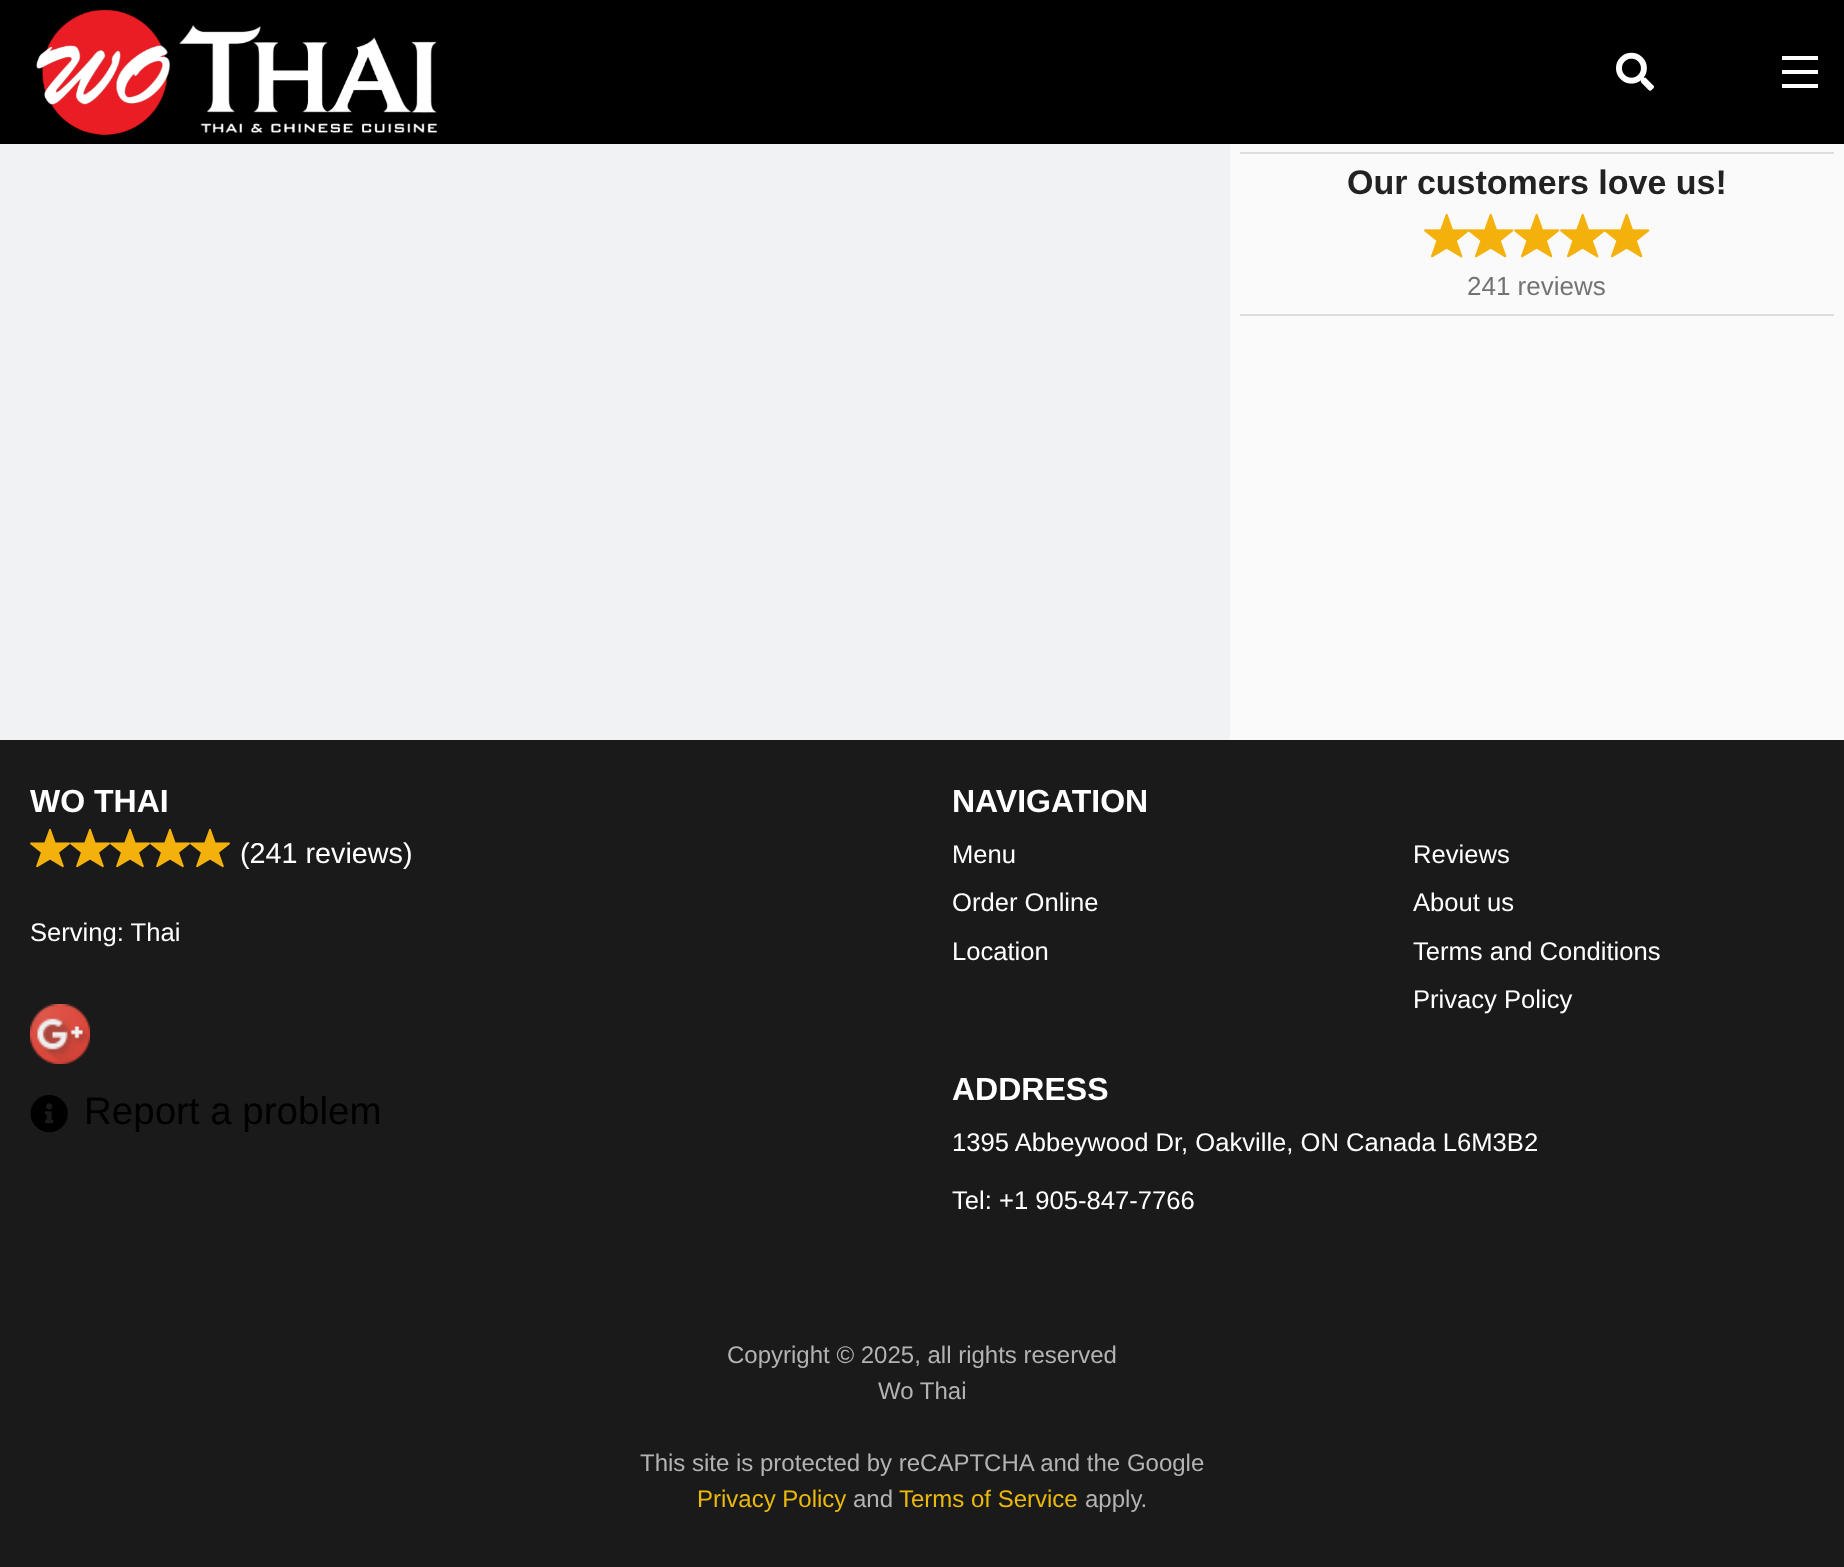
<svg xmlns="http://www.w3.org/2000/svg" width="1844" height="1567">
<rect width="100%" height="100%" fill="#f1f2f3"/>
<rect width="1844" height="144" fill="#000"/>
<image x="36" y="10" width="401" height="126" href="media/1.png"/>
<image x="1616" y="52" width="38" height="39" href="media/2.png"/>
<rect x="1782" y="84" width="36" height="4" fill="#fff"/>
<rect x="1782" y="70" width="36" height="4" fill="#fff"/>
<rect x="1782" y="56" width="36" height="4" fill="#fff"/>
<rect x="1230" y="144" width="614" height="596" fill="#fafafa"/>
<rect x="1240" y="152" width="594" height="2" fill="#ddd"/>
<text x="1347" y="194" style="font-family:Liberation Sans;font-size:34px;font-weight:bold;fill:#222">Our customers love us!</text>
<image x="1424" y="213" width="46" height="45" href="media/3.png"/>
<image x="1468" y="213" width="46" height="45" href="media/4.png"/>
<image x="1514" y="213" width="46" height="45" href="media/3.png"/>
<image x="1560" y="213" width="46" height="45" href="media/3.png"/>
<image x="1604" y="213" width="46" height="45" href="media/4.png"/>
<text x="1467" y="295" style="font-family:Liberation Sans;font-size:26px;fill:#737373">241 reviews</text>
<rect x="1240" y="314" width="594" height="2" fill="#ddd"/>
<rect y="740" width="1844" height="827" fill="#1a1a1a"/>
<text x="30" y="812" style="font-family:Liberation Sans;font-size:32px;font-weight:bold;fill:#fff">WO THAI</text>
<image x="30" y="828" width="40" height="40" href="media/5.png"/>
<image x="70" y="828" width="40" height="40" href="media/5.png"/>
<image x="110" y="828" width="40" height="40" href="media/5.png"/>
<image x="150" y="828" width="40" height="40" href="media/5.png"/>
<image x="190" y="828" width="40" height="40" href="media/5.png"/>
<text x="240" y="863" style="font-family:Liberation Sans;font-size:28.75px;fill:#fff">(241 reviews)</text>
<text x="30" y="941" style="font-family:Liberation Sans;font-size:25.6px;fill:#fff">Serving: Thai</text>
<image x="30" y="1004" width="60" height="60" href="media/6.png"/>
<image x="30" y="1095" width="38" height="38" href="media/7.png"/>
<text x="84" y="1124" style="font-family:Liberation Sans;font-size:38.5px;fill:#000">Report a problem</text>
<text x="952" y="812" style="font-family:Liberation Sans;font-size:32px;font-weight:bold;fill:#fff">NAVIGATION</text>
<text x="952" y="863" style="font-family:Liberation Sans;font-size:25.6px;fill:#fff">Menu</text>
<text x="952" y="911" style="font-family:Liberation Sans;font-size:25.6px;fill:#fff">Order Online</text>
<text x="952" y="960" style="font-family:Liberation Sans;font-size:25.6px;fill:#fff">Location</text>
<text x="1413" y="863" style="font-family:Liberation Sans;font-size:25.6px;fill:#fff">Reviews</text>
<text x="1413" y="911" style="font-family:Liberation Sans;font-size:25.6px;fill:#fff">About us</text>
<text x="1413" y="960" style="font-family:Liberation Sans;font-size:25.6px;fill:#fff">Terms and Conditions</text>
<text x="1413" y="1008" style="font-family:Liberation Sans;font-size:25.6px;fill:#fff">Privacy Policy</text>
<text x="952" y="1100" style="font-family:Liberation Sans;font-size:32px;font-weight:bold;fill:#fff">ADDRESS</text>
<text x="952" y="1151" style="font-family:Liberation Sans;font-size:25.6px;fill:#fff">1395 Abbeywood Dr, Oakville, ON Canada L6M3B2</text>
<text x="952" y="1209" style="font-family:Liberation Sans;font-size:25.6px;fill:#fff">Tel: +1 905-847-7766</text>
<text x="727" y="1363" style="font-family:Liberation Sans;font-size:24px;fill:#b3b3b3">Copyright © 2025, all rights reserved</text>
<text x="878" y="1399" style="font-family:Liberation Sans;font-size:24px;fill:#b3b3b3">Wo Thai</text>
<text x="640" y="1471" style="font-family:Liberation Sans;font-size:24px;fill:#b3b3b3">This site is protected by reCAPTCHA and the Google</text>
<text x="697" y="1507" style="font-family:Liberation Sans;font-size:24px;fill:#ebb90b">Privacy Policy</text>
<text x="853" y="1507" style="font-family:Liberation Sans;font-size:24px;fill:#b3b3b3">and</text>
<text x="899" y="1507" style="font-family:Liberation Sans;font-size:24px;fill:#ebb90b">Terms of Service</text>
<text x="1085" y="1507" style="font-family:Liberation Sans;font-size:24px;fill:#b3b3b3">apply.</text>
</svg>
